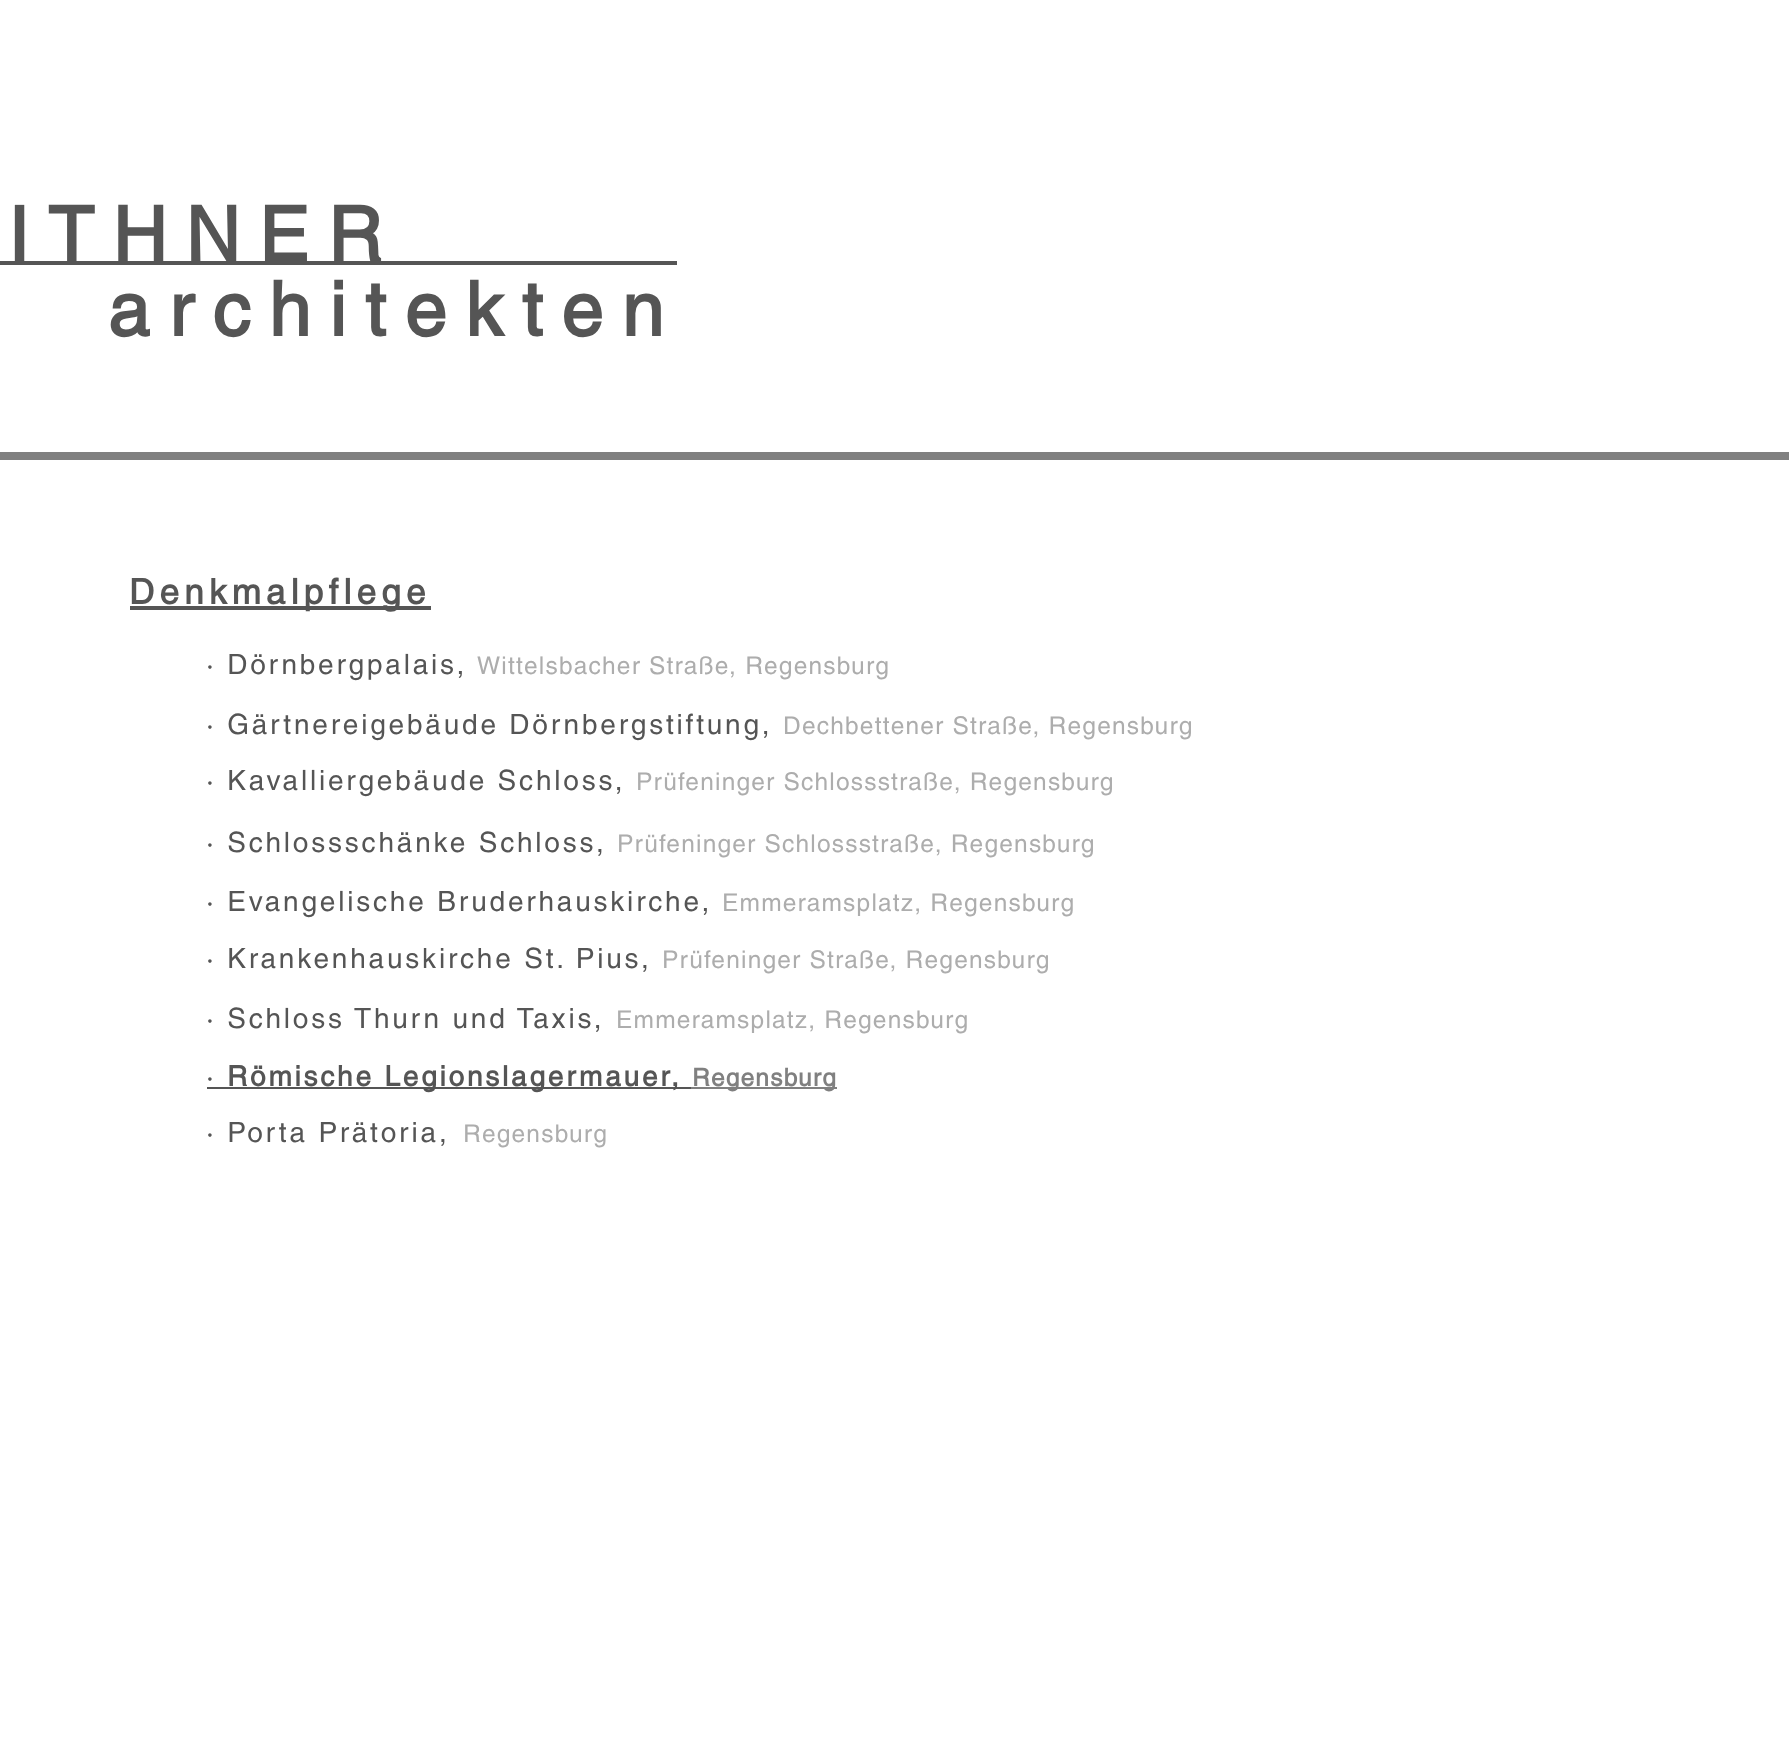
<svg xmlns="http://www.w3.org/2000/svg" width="1789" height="1737">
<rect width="100%" height="100%" fill="#fff"/>
<text x="8" y="261" style="font-family:helvetica;font-size:75.25px;font-weight:bold;letter-spacing:18.75px;fill:#555">ITHNER</text>
<text x="108" y="336" style="font-family:helvetica;font-size:75.25px;font-weight:bold;letter-spacing:18.75px;fill:#555">architekten</text>
<rect y="261" width="677" height="4" fill="#555"/>
<rect y="452" width="1789" height="8" fill="#808080"/>
<rect x="130" y="606" width="301" height="4" fill="#555"/>
<text x="129" y="604" style="font-family:helvetica;font-size:35px;font-weight:bold;letter-spacing:5.25px;fill:#555">Denkmalpflege</text>
<text x="206" y="674" style="font-family:helvetica;font-size:28px;letter-spacing:2.8px;fill:#555">· Dörnbergpalais,</text>
<text x="477" y="674" style="font-family:helvetica;font-size:24.5px;letter-spacing:1.2px;fill:#adadad">Wittelsbacher Straße, Regensburg</text>
<text x="206" y="734" style="font-family:helvetica;font-size:28px;letter-spacing:2.8px;fill:#555">· Gärtnereigebäude Dörnbergstiftung,</text>
<text x="783" y="734" style="font-family:helvetica;font-size:24.5px;letter-spacing:1.2px;fill:#adadad">Dechbettener Straße, Regensburg</text>
<text x="206" y="790" style="font-family:helvetica;font-size:28px;letter-spacing:2.8px;fill:#555">· Kavalliergebäude Schloss,</text>
<text x="636" y="790" style="font-family:helvetica;font-size:24.5px;letter-spacing:1.2px;fill:#adadad">Prüfeninger Schlossstraße, Regensburg</text>
<text x="206" y="852" style="font-family:helvetica;font-size:28px;letter-spacing:2.8px;fill:#555">· Schlossschänke Schloss,</text>
<text x="617" y="852" style="font-family:helvetica;font-size:24.5px;letter-spacing:1.2px;fill:#adadad">Prüfeninger Schlossstraße, Regensburg</text>
<text x="206" y="911" style="font-family:helvetica;font-size:28px;letter-spacing:2.8px;fill:#555">· Evangelische Bruderhauskirche,</text>
<text x="722" y="911" style="font-family:helvetica;font-size:24.5px;letter-spacing:1.2px;fill:#adadad">Emmeramsplatz, Regensburg</text>
<text x="206" y="968" style="font-family:helvetica;font-size:28px;letter-spacing:2.8px;fill:#555">· Krankenhauskirche St. Pius,</text>
<text x="662" y="968" style="font-family:helvetica;font-size:24.5px;letter-spacing:1.2px;fill:#adadad">Prüfeninger Straße, Regensburg</text>
<text x="206" y="1028" style="font-family:helvetica;font-size:28px;letter-spacing:2.8px;fill:#555">· Schloss Thurn und Taxis,</text>
<text x="616" y="1028" style="font-family:helvetica;font-size:24.5px;letter-spacing:1.2px;fill:#adadad">Emmeramsplatz, Regensburg</text>
<text x="206" y="1086" style="font-family:helvetica;font-size:28px;letter-spacing:2.8px;fill:#555">·</text>
<rect x="207" y="1087" width="484" height="2" fill="#555"/>
<text x="227" y="1086" style="font-family:helvetica;font-size:28px;font-weight:bold;letter-spacing:2.8px;fill:#555">Römische Legionslagermauer,</text>
<rect x="691" y="1087" width="146" height="2" fill="#808080"/>
<text x="692" y="1086" style="font-family:helvetica;font-size:24.5px;font-weight:bold;letter-spacing:1.2px;fill:#808080">Regensburg</text>
<text x="206" y="1142" style="font-family:helvetica;font-size:28px;letter-spacing:2.8px;fill:#555">· Porta Prätoria</text>
<text x="439" y="1142" style="font-family:helvetica;font-size:28px;letter-spacing:4px;fill:#555">,</text>
<text x="463" y="1142" style="font-family:helvetica;font-size:24.5px;letter-spacing:1.2px;fill:#adadad">Regensburg</text>
</svg>
